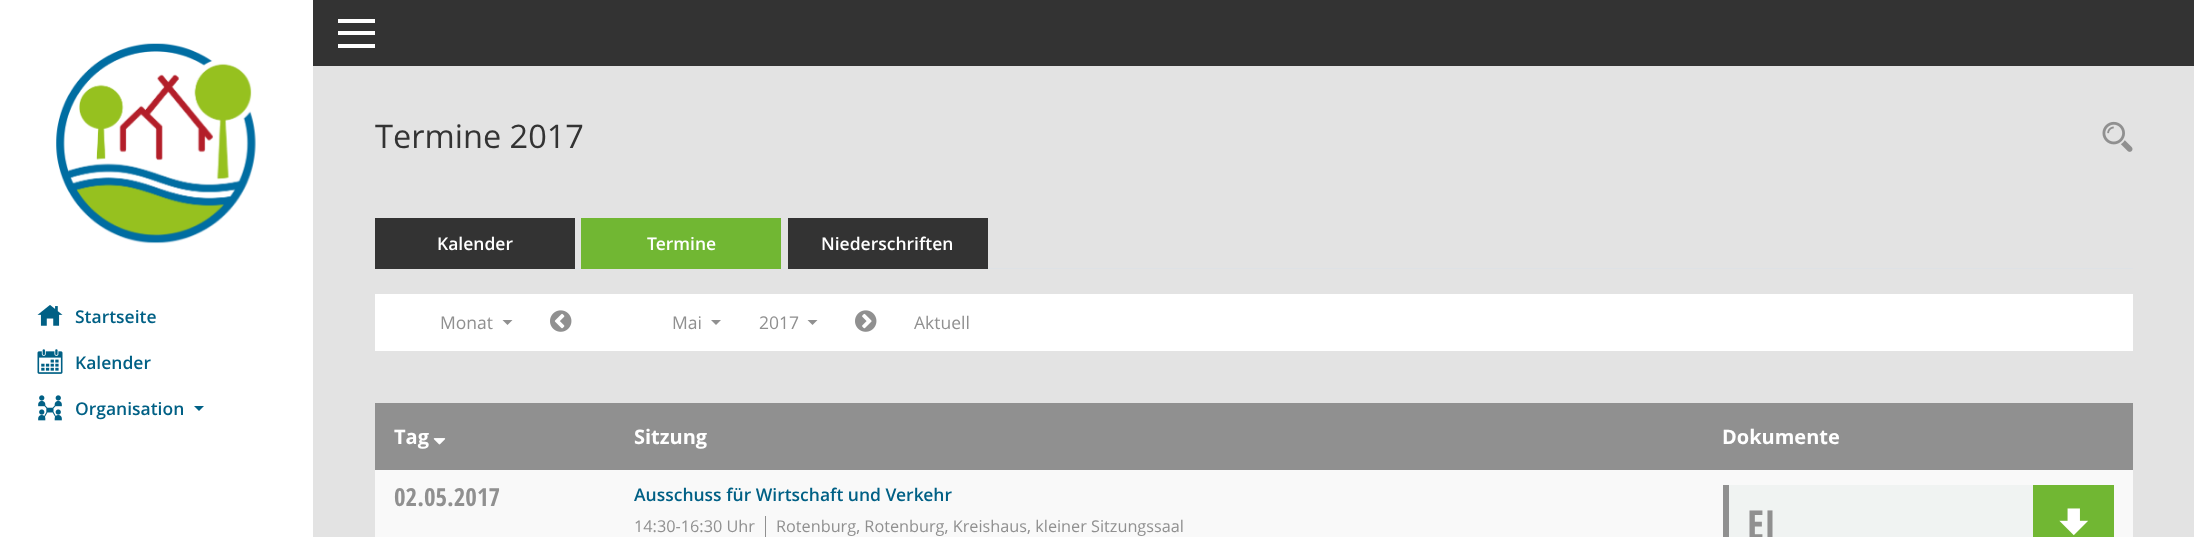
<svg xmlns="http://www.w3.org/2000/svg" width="2194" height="537">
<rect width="100%" height="100%" fill="#e3e3e3"/>
<rect width="313" height="537" fill="#fff"/>
<image x="56" y="43" width="200" height="201" href="media/1.png"/>
<image x="37" y="305" width="26" height="21" href="media/2.png"/>
<text x="75" y="323" style="font-family:Open Sans;font-size:17.5px;font-weight:600;fill:#006085">Startseite</text>
<image x="37" y="349" width="26" height="25" href="media/3.png"/>
<text x="75" y="369" style="font-family:Open Sans;font-size:17.5px;font-weight:600;fill:#006085">Kalender</text>
<image x="38" y="395" width="24" height="26" href="media/4.png"/>
<text x="75" y="415" style="font-family:Open Sans;font-size:17.5px;font-weight:600;fill:#006085">Organisation</text>
<path d="M194 406h10l-5 5z" fill="#006085"/>
<rect x="313" width="1881" height="66" fill="#333"/>
<rect x="338" y="19" width="37" height="4" fill="#fff"/>
<rect x="338" y="31" width="37" height="4" fill="#fff"/>
<rect x="338" y="44" width="37" height="4" fill="#fff"/>
<text x="375" y="148" style="font-family:Open Sans;font-size:32.5px;fill:#333">Termine 2017</text>
<image x="2102" y="121" width="31" height="31" href="media/5.png"/>
<rect x="575" y="268" width="1558" height="1" fill="#dee2e6"/>
<rect x="375" y="218" width="200" height="51" fill="#333"/>
<text x="437" y="250" style="font-family:Open Sans;font-size:17.5px;font-weight:600;fill:#fff">Kalender</text>
<rect x="581" y="218" width="200" height="51" fill="#71b733"/>
<text x="647" y="250" style="font-family:Open Sans;font-size:17.5px;font-weight:600;fill:#fff">Termine</text>
<rect x="788" y="218" width="200" height="51" fill="#333"/>
<text x="821" y="250" style="font-family:Open Sans;font-size:17.5px;font-weight:600;fill:#fff">Niederschriften</text>
<rect x="375" y="294" width="1758" height="57" fill="#fff"/>
<text x="440" y="329" style="font-family:Open Sans;font-size:17.5px;fill:#909090">Monat</text>
<path d="M502.5 320h10l-5 5z" fill="#909090"/>
<image x="550" y="310" width="22" height="22" href="media/6.png"/>
<text x="672" y="329" style="font-family:Open Sans;font-size:17.5px;fill:#909090">Mai</text>
<path d="M711 320h10l-5 5z" fill="#909090"/>
<text x="759" y="329" style="font-family:Open Sans;font-size:17.5px;fill:#909090">2017</text>
<path d="M807.5 320h10l-5 5z" fill="#909090"/>
<image x="855" y="310" width="22" height="22" href="media/7.png"/>
<text x="914" y="329" style="font-family:Open Sans;font-size:17.5px;fill:#909090">Aktuell</text>
<rect x="375" y="403" width="1758" height="67" fill="#909090"/>
<text x="394" y="444" style="font-family:Open Sans;font-size:20px;font-weight:bold;fill:#fff">Tag</text>
<image x="433" y="438" width="13" height="7" href="media/8.png"/>
<text x="634" y="444" style="font-family:Open Sans;font-size:20px;font-weight:bold;fill:#fff">Sitzung</text>
<text x="1722" y="444" style="font-family:Open Sans;font-size:20px;font-weight:bold;fill:#fff">Dokumente</text>
<rect x="375" y="470" width="1758" height="67" fill="#f9f9f9"/>
<text x="394" y="506" style="font-family:Open Sans Condensed;font-size:25px;font-weight:bold;fill:#909090">02.05.2017</text>
<text x="634" y="501" style="font-family:Open Sans;font-size:17.5px;font-weight:600;fill:#006085">Ausschuss für Wirtschaft und Verkehr</text>
<text x="634" y="532" style="font-family:Open Sans;font-size:16.25px;fill:#909090">14:30-16:30 Uhr</text>
<rect x="765" y="516" width="1" height="21" fill="#909090"/>
<text x="776" y="532" style="font-family:Open Sans;font-size:16.25px;fill:#909090">Rotenburg, Rotenburg, Kreishaus, kleiner Sitzungssaal</text>
<rect x="1729" y="485" width="304" height="52" fill="#f0f3f2"/>
<rect x="1723" y="485" width="6" height="52" fill="#909090"/>
<text x="1747" y="539" style="font-family:Open Sans Condensed;font-size:40px;font-weight:bold;fill:#909090">EI</text>
<rect x="2033" y="485" width="81" height="52" fill="#71b733"/>
<image x="2059" y="508" width="29" height="28" href="media/9.png"/>
</svg>
